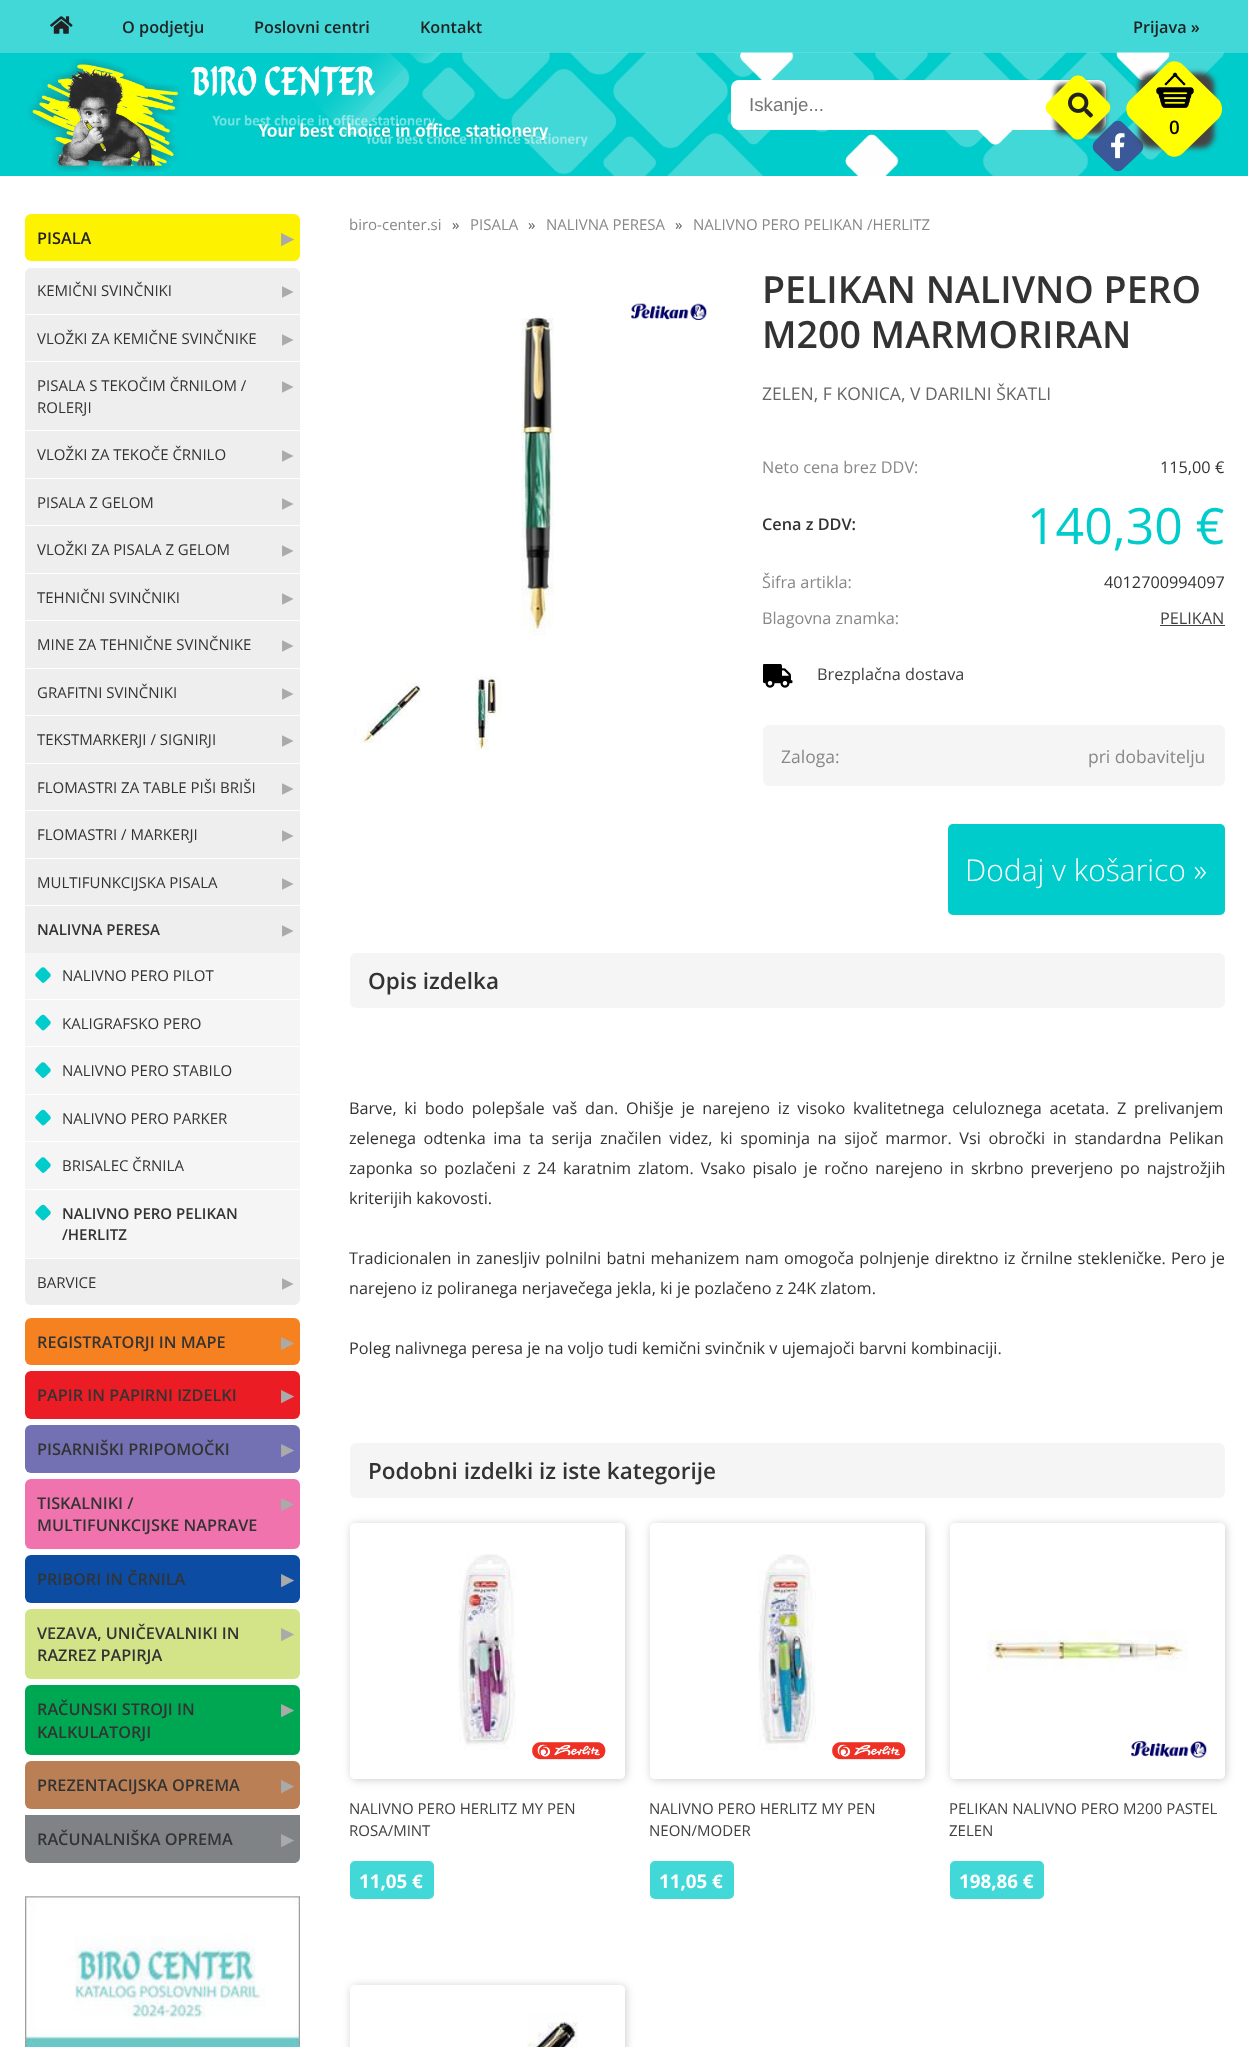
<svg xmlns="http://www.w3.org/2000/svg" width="1248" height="2047">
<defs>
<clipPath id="clip1"><path d="M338 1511h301v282h-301zm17 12h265c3 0 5 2 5 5v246c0 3-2 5-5 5h-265c-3 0-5-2-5-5v-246c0-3 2-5 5-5z" clip-rule="evenodd"/></clipPath>
<clipPath id="clip2"><path d="M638 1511h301v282h-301zm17 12h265c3 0 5 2 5 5v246c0 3-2 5-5 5h-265c-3 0-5-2-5-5v-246c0-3 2-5 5-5z" clip-rule="evenodd"/></clipPath>
<clipPath id="clip3"><path d="M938 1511h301v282h-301zm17 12h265c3 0 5 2 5 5v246c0 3-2 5-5 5h-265c-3 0-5-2-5-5v-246c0-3 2-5 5-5z" clip-rule="evenodd"/></clipPath>
<clipPath id="clip4"><path d="M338 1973h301v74h-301zm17 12h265c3 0 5 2 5 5v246c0 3-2 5-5 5h-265c-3 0-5-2-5-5v-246c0-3 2-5 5-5z" clip-rule="evenodd"/></clipPath>
</defs>
<rect width="100%" height="100%" fill="#00cccb"/>
<rect width="1248" height="53" fill="#42d8d8"/>
<image x="50" y="16" width="23" height="18" href="media/1.png"/>
<text x="122" y="33" style="font-family:Open Sans;font-size:16.25px;font-weight:600;fill:#222">O podjetju</text>
<text x="254" y="33" style="font-family:Open Sans;font-size:16.25px;font-weight:600;fill:#222">Poslovni centri</text>
<text x="420" y="33" style="font-family:Open Sans;font-size:16.25px;font-weight:600;fill:#222">Kontakt</text>
<text x="1133" y="33" style="font-family:Open Sans;font-size:16.25px;font-weight:600;fill:#222">Prijava »</text>
<image x="305" y="52" width="920" height="124" href="media/2.png"/>
<image x="212" y="115" width="376" height="32" href="media/5.png"/>
<image x="28" y="59" width="347" height="113" href="media/3.png"/>
<path d="M1123 123l18 18c3 3 3 8 0 11l-18 17c-3 3-7 3-10 0l-18-17c-3-3-3-8 0-11l18-18c3-3 7-3 10 0z" fill="#3b5998"/>
<rect x="731" y="80" width="375" height="50" rx="8" fill="#fff"/>
<text x="749" y="111" style="font-family:Liberation Sans;font-size:18.75px;fill:#757575">Iskanje...</text>
<image x="1111" y="133" width="14" height="26" href="media/6.png"/>
<rect x="1055" y="84" width="50" height="50" rx="8" fill="#444" filter="blur(2.5px)"/>
<path d="M1083 77l25 25c3 3 3 8 0 11l-25 25c-3 2-7 2-10 0l-25-25c-3-3-3-8 0-11l25-25c3-2 7-2 10 0z" fill="#ff0"/>
<image x="1068" y="92" width="25" height="26" href="media/4.png"/>
<rect x="1139" y="73" width="75" height="75" rx="13" fill="#444" filter="blur(2.5px)"/>
<path d="M1183 65l36 35c4 5 4 13 0 18l-36 35c-5 5-13 5-17 0l-36-35c-5-5-5-13 0-18l36-35c4-5 12-5 17 0z" fill="#ff0"/>
<image x="1156" y="72" width="38" height="36" href="media/7.png"/>
<text x="1169" y="134" style="font-family:Open Sans;font-size:18.75px;font-weight:600;fill:#000">0</text>
<rect y="176" width="1248" height="1871" fill="#fff"/>
<rect x="25" y="214" width="275" height="47" rx="6" fill="#fdf300"/>
<text x="37" y="244" style="font-family:Open Sans;font-size:16.25px;font-weight:600;fill:#222">PISALA</text>
<text x="281" y="244" style="font-family:DejaVu Sans;font-size:16.25px;font-weight:bold;fill:#aaa">▶</text>
<rect x="25" y="268" width="275" height="1037" rx="6" fill="#eee"/>
<rect x="25" y="314" width="275" height="1" fill="#fff"/>
<text x="37" y="296" style="font-family:Open Sans;font-size:15px;fill:#333">KEMIČNI SVINČNIKI</text>
<text x="282" y="296" style="font-family:DejaVu Sans;font-size:15px;fill:#aaa">▶</text>
<rect x="25" y="361" width="275" height="1" fill="#fff"/>
<text x="37" y="344" style="font-family:Open Sans;font-size:15px;fill:#333">VLOŽKI ZA KEMIČNE SVINČNIKE</text>
<text x="282" y="344" style="font-family:DejaVu Sans;font-size:15px;fill:#aaa">▶</text>
<rect x="25" y="430" width="275" height="1" fill="#fff"/>
<text x="37" y="391" style="font-family:Open Sans;font-size:15px;fill:#333">PISALA S TEKOČIM ČRNILOM /</text>
<text x="37" y="413" style="font-family:Open Sans;font-size:15px;fill:#333">ROLERJI</text>
<text x="282" y="391" style="font-family:DejaVu Sans;font-size:15px;fill:#aaa">▶</text>
<rect x="25" y="478" width="275" height="1" fill="#fff"/>
<text x="37" y="460" style="font-family:Open Sans;font-size:15px;fill:#333">VLOŽKI ZA TEKOČE ČRNILO</text>
<text x="282" y="460" style="font-family:DejaVu Sans;font-size:15px;fill:#aaa">▶</text>
<rect x="25" y="525" width="275" height="1" fill="#fff"/>
<text x="37" y="508" style="font-family:Open Sans;font-size:15px;fill:#333">PISALA Z GELOM</text>
<text x="282" y="508" style="font-family:DejaVu Sans;font-size:15px;fill:#aaa">▶</text>
<rect x="25" y="573" width="275" height="1" fill="#fff"/>
<text x="37" y="555" style="font-family:Open Sans;font-size:15px;fill:#333">VLOŽKI ZA PISALA Z GELOM</text>
<text x="282" y="555" style="font-family:DejaVu Sans;font-size:15px;fill:#aaa">▶</text>
<rect x="25" y="620" width="275" height="1" fill="#fff"/>
<text x="37" y="603" style="font-family:Open Sans;font-size:15px;fill:#333">TEHNIČNI SVINČNIKI</text>
<text x="282" y="603" style="font-family:DejaVu Sans;font-size:15px;fill:#aaa">▶</text>
<rect x="25" y="668" width="275" height="1" fill="#fff"/>
<text x="37" y="650" style="font-family:Open Sans;font-size:15px;fill:#333">MINE ZA TEHNIČNE SVINČNIKE</text>
<text x="282" y="650" style="font-family:DejaVu Sans;font-size:15px;fill:#aaa">▶</text>
<rect x="25" y="715" width="275" height="1" fill="#fff"/>
<text x="37" y="698" style="font-family:Open Sans;font-size:15px;fill:#333">GRAFITNI SVINČNIKI</text>
<text x="282" y="698" style="font-family:DejaVu Sans;font-size:15px;fill:#aaa">▶</text>
<rect x="25" y="763" width="275" height="1" fill="#fff"/>
<text x="37" y="745" style="font-family:Open Sans;font-size:15px;fill:#333">TEKSTMARKERJI / SIGNIRJI</text>
<text x="282" y="745" style="font-family:DejaVu Sans;font-size:15px;fill:#aaa">▶</text>
<rect x="25" y="810" width="275" height="1" fill="#fff"/>
<text x="37" y="793" style="font-family:Open Sans;font-size:15px;fill:#333">FLOMASTRI ZA TABLE PIŠI BRIŠI</text>
<text x="282" y="793" style="font-family:DejaVu Sans;font-size:15px;fill:#aaa">▶</text>
<rect x="25" y="858" width="275" height="1" fill="#fff"/>
<text x="37" y="840" style="font-family:Open Sans;font-size:15px;fill:#333">FLOMASTRI / MARKERJI</text>
<text x="282" y="840" style="font-family:DejaVu Sans;font-size:15px;fill:#aaa">▶</text>
<rect x="25" y="905" width="275" height="1" fill="#fff"/>
<text x="37" y="888" style="font-family:Open Sans;font-size:15px;fill:#333">MULTIFUNKCIJSKA PISALA</text>
<text x="282" y="888" style="font-family:DejaVu Sans;font-size:15px;fill:#aaa">▶</text>
<rect x="25" y="1258" width="275" height="1" fill="#fff"/>
<text x="37" y="935" style="font-family:Open Sans;font-size:15px;font-weight:600;fill:#333">NALIVNA PERESA</text>
<text x="282" y="935" style="font-family:DejaVu Sans;font-size:15px;fill:#aaa">▶</text>
<rect x="25" y="953" width="275" height="305" fill="#f5f5f5"/>
<rect x="25" y="999" width="275" height="1" fill="#fff"/>
<path d="M45 968l5.5 6c1 2.5-1.5 4-3 5.5c-1.5 1.5-4 5-6 2.5l-6-6c-1-2.5 2-4 3-5.5c1.5-1.5 4-5 6.5-2.5z" fill="#00cccb"/>
<text x="62" y="981" style="font-family:Open Sans;font-size:15px;fill:#333">NALIVNO PERO PILOT</text>
<rect x="25" y="1046" width="275" height="1" fill="#fff"/>
<path d="M45 1015.5l5.5 6c1 2.5-1.5 4-3 5.5c-1.5 1.5-4 5-6 2.5l-6-6c-1-2.5 2-4 3-5.5c1.5-1.5 4-5 6.5-2.5z" fill="#00cccb"/>
<text x="62" y="1029" style="font-family:Open Sans;font-size:15px;fill:#333">KALIGRAFSKO PERO</text>
<rect x="25" y="1094" width="275" height="1" fill="#fff"/>
<path d="M45 1063l5.5 6c1 2.5-1.5 4-3 5.5c-1.5 1.5-4 5-6 2.5l-6-6c-1-2.5 2-4 3-5.5c1.5-1.5 4-5 6.5-2.5z" fill="#00cccb"/>
<text x="62" y="1076" style="font-family:Open Sans;font-size:15px;fill:#333">NALIVNO PERO STABILO</text>
<rect x="25" y="1141" width="275" height="1" fill="#fff"/>
<path d="M45 1110.5l5.5 6c1 2.5-1.5 4-3 5.5c-1.5 1.5-4 5-6 2.5l-6-6c-1-2.5 2-4 3-5.5c1.5-1.5 4-5 6.5-2.5z" fill="#00cccb"/>
<text x="62" y="1124" style="font-family:Open Sans;font-size:15px;fill:#333">NALIVNO PERO PARKER</text>
<rect x="25" y="1189" width="275" height="1" fill="#fff"/>
<path d="M45 1158l5.5 6c1 2.5-1.5 4-3 5.5c-1.5 1.5-4 5-6 2.5l-6-6c-1-2.5 2-4 3-5.5c1.5-1.5 4-5 6.5-2.5z" fill="#00cccb"/>
<text x="62" y="1171" style="font-family:Open Sans;font-size:15px;fill:#333">BRISALEC ČRNILA</text>
<path d="M45 1205.5l5.5 6c1 2.5-1.5 4-3 5.5c-1.5 1.5-4 5-6 2.5l-6-6c-1-2.5 2-4 3-5.5c1.5-1.5 4-5 6.5-2.5z" fill="#00cccb"/>
<text x="62" y="1219" style="font-family:Open Sans;font-size:15px;font-weight:600;fill:#333">NALIVNO PERO PELIKAN</text>
<text x="62" y="1240" style="font-family:Open Sans;font-size:15px;font-weight:600;fill:#333">/HERLITZ</text>
<text x="37" y="1288" style="font-family:Open Sans;font-size:15px;fill:#333">BARVICE</text>
<text x="282" y="1288" style="font-family:DejaVu Sans;font-size:15px;fill:#aaa">▶</text>
<rect x="25" y="1318" width="275" height="47" rx="6" fill="#f68121"/>
<text x="37" y="1348" style="font-family:Open Sans;font-size:16.25px;font-weight:600;fill:#333">REGISTRATORJI IN MAPE</text>
<text x="281" y="1348" style="font-family:DejaVu Sans;font-size:16.25px;font-weight:bold;fill:#aaa">▶</text>
<rect x="25" y="1371" width="275" height="48" rx="6" fill="#eb1c24"/>
<text x="37" y="1401" style="font-family:Open Sans;font-size:16.25px;font-weight:600;fill:#333">PAPIR IN PAPIRNI IZDELKI</text>
<text x="281" y="1401" style="font-family:DejaVu Sans;font-size:16.25px;font-weight:bold;fill:#aaa">▶</text>
<rect x="25" y="1425" width="275" height="48" rx="6" fill="#7371b3"/>
<text x="37" y="1455" style="font-family:Open Sans;font-size:16.25px;font-weight:600;fill:#333">PISARNIŠKI PRIPOMOČKI</text>
<text x="281" y="1455" style="font-family:DejaVu Sans;font-size:16.25px;font-weight:bold;fill:#aaa">▶</text>
<rect x="25" y="1479" width="275" height="70" rx="6" fill="#f073ad"/>
<text x="37" y="1509" style="font-family:Open Sans;font-size:16.25px;font-weight:600;fill:#333">TISKALNIKI /</text>
<text x="37" y="1531" style="font-family:Open Sans;font-size:16.25px;font-weight:600;fill:#333">MULTIFUNKCIJSKE NAPRAVE</text>
<text x="281" y="1509" style="font-family:DejaVu Sans;font-size:16.25px;font-weight:bold;fill:#aaa">▶</text>
<rect x="25" y="1555" width="275" height="48" rx="6" fill="#0c4ca3"/>
<text x="37" y="1585" style="font-family:Open Sans;font-size:16.25px;font-weight:600;fill:#333">PRIBORI IN ČRNILA</text>
<text x="281" y="1585" style="font-family:DejaVu Sans;font-size:16.25px;font-weight:bold;fill:#aaa">▶</text>
<rect x="25" y="1609" width="275" height="70" rx="6" fill="#d3e488"/>
<text x="37" y="1639" style="font-family:Open Sans;font-size:16.25px;font-weight:600;fill:#333">VEZAVA, UNIČEVALNIKI IN</text>
<text x="37" y="1661" style="font-family:Open Sans;font-size:16.25px;font-weight:600;fill:#333">RAZREZ PAPIRJA</text>
<text x="281" y="1639" style="font-family:DejaVu Sans;font-size:16.25px;font-weight:bold;fill:#aaa">▶</text>
<rect x="25" y="1685" width="275" height="70" rx="6" fill="#00a752"/>
<text x="37" y="1715" style="font-family:Open Sans;font-size:16.25px;font-weight:600;fill:#333">RAČUNSKI STROJI IN</text>
<text x="37" y="1738" style="font-family:Open Sans;font-size:16.25px;font-weight:600;fill:#333">KALKULATORJI</text>
<text x="281" y="1715" style="font-family:DejaVu Sans;font-size:16.25px;font-weight:bold;fill:#aaa">▶</text>
<rect x="25" y="1761" width="275" height="48" rx="6" fill="#ba7f55"/>
<text x="37" y="1791" style="font-family:Open Sans;font-size:16.25px;font-weight:600;fill:#333">PREZENTACIJSKA OPREMA</text>
<text x="281" y="1791" style="font-family:DejaVu Sans;font-size:16.25px;font-weight:bold;fill:#aaa">▶</text>
<path d="M25 1815h275v42c0 3.5-2.5 6-6 6h-263c-3.5 0-6-2.5-6-6z" fill="#7f8386"/>
<text x="37" y="1845" style="font-family:Open Sans;font-size:16.25px;font-weight:600;fill:#333">RAČUNALNIŠKA OPREMA</text>
<text x="281" y="1845" style="font-family:DejaVu Sans;font-size:16.25px;font-weight:bold;fill:#aaa">▶</text>
<image x="25" y="1896" width="275" height="151" href="media/8.png"/>
<text x="349" y="230" style="font-family:Open Sans;font-size:15px;fill:#888">biro-center.si</text>
<text x="452" y="230" style="font-family:Open Sans;font-size:15px;fill:#606060">»</text>
<text x="470" y="230" style="font-family:Open Sans;font-size:15px;fill:#888">PISALA</text>
<text x="528" y="230" style="font-family:Open Sans;font-size:15px;fill:#606060">»</text>
<text x="546" y="230" style="font-family:Open Sans;font-size:15px;fill:#888">NALIVNA PERESA</text>
<text x="675" y="230" style="font-family:Open Sans;font-size:15px;fill:#606060">»</text>
<text x="693" y="230" style="font-family:Open Sans;font-size:15px;fill:#888">NALIVNO PERO PELIKAN /HERLITZ</text>
<image x="631" y="303" width="76" height="17" href="media/9.png"/>
<image x="521" y="316" width="33" height="319" href="media/10.png"/>
<image x="354" y="677" width="67" height="67" href="media/11.png"/>
<image x="475" y="676" width="27" height="75" href="media/12.png"/>
<text x="762" y="303" style="font-family:Open Sans;font-size:37.5px;font-weight:600;fill:#333">PELIKAN NALIVNO PERO</text>
<text x="762" y="348" style="font-family:Open Sans;font-size:37.5px;font-weight:600;fill:#333">M200 MARMORIRAN</text>
<text x="762" y="400" style="font-family:Open Sans;font-size:17.5px;fill:#666">ZELEN, F KONICA, V DARILNI ŠKATLI</text>
<text x="762" y="473" style="font-family:Open Sans;font-size:16.25px;fill:#888">Neto cena brez DDV:</text>
<text x="1160" y="473" style="font-family:Open Sans;font-size:16.25px;fill:#333">115,00 €</text>
<text x="762" y="530" style="font-family:Open Sans;font-size:16.25px;font-weight:600;fill:#333">Cena z DDV:</text>
<text x="1027" y="544" style="font-family:Open Sans;font-size:50px;fill:#00cccb">140,30 €</text>
<text x="762" y="588" style="font-family:Open Sans;font-size:16.25px;fill:#888">Šifra artikla:</text>
<text x="1104" y="588" style="font-family:Open Sans;font-size:16.25px;fill:#333">4012700994097</text>
<text x="762" y="624" style="font-family:Open Sans;font-size:16.25px;fill:#888">Blagovna znamka:</text>
<text x="1160" y="624" style="font-family:Open Sans;font-size:16.25px;fill:#404040">PELIKAN</text>
<rect x="1160" y="625" width="65" height="1" fill="#404040"/>
<image x="763" y="664" width="30" height="24" href="media/13.png"/>
<text x="817" y="680" style="font-family:Open Sans;font-size:16.25px;fill:#404040">Brezplačna dostava</text>
<rect x="763" y="725" width="462" height="61" rx="6" fill="#f5f5f5"/>
<text x="781" y="763" style="font-family:Open Sans;font-size:17.5px;fill:#888">Zaloga:</text>
<text x="1088" y="763" style="font-family:Open Sans;font-size:17.5px;fill:#888">pri dobavitelju</text>
<rect x="948" y="824" width="277" height="91" rx="5" fill="#00cccb"/>
<text x="965" y="881" style="font-family:Open Sans;font-size:30px;font-weight:300;fill:#fff">Dodaj v košarico »</text>
<rect x="350" y="953" width="875" height="55" rx="6" fill="#f5f5f5"/>
<text x="368" y="989" style="font-family:Open Sans;font-size:22.5px;font-weight:600;fill:#333">Opis izdelka</text>
<text x="349" y="1114" word-spacing="3.5" style="font-family:Open Sans;font-size:16.25px;fill:#333">Barve, ki bodo polepšale vaš dan. Ohišje je narejeno iz visoko kvalitetnega celuloznega acetata. Z prelivanjem</text>
<text x="349" y="1144" word-spacing="3.4" style="font-family:Open Sans;font-size:16.25px;fill:#333">zelenega odtenka ima ta serija značilen videz, ki spominja na sijoč marmor. Vsi obročki in standardna Pelikan</text>
<text x="349" y="1174" word-spacing="2.75" style="font-family:Open Sans;font-size:16.25px;fill:#333">zaponka so pozlačeni z 24 karatnim zlatom. Vsako pisalo je ročno narejeno in skrbno preverjeno po najstrožjih</text>
<text x="349" y="1204" style="font-family:Open Sans;font-size:16.25px;fill:#333">kriterijih kakovosti.</text>
<text x="349" y="1264" word-spacing="1" style="font-family:Open Sans;font-size:16.25px;fill:#333">Tradicionalen in zanesljiv polnilni batni mehanizem nam omogoča polnjenje direktno iz črnilne stekleničke. Pero je</text>
<text x="349" y="1294" style="font-family:Open Sans;font-size:16.25px;fill:#333">narejeno iz poliranega nerjavečega jekla, ki je pozlačeno z 24K zlatom.</text>
<text x="349" y="1354" style="font-family:Open Sans;font-size:16.25px;fill:#333">Poleg nalivnega peresa je na voljo tudi kemični svinčnik v ujemajoči barvni kombinaciji.</text>
<rect x="350" y="1443" width="875" height="55" rx="6" fill="#f5f5f5"/>
<text x="368" y="1479" style="font-family:Open Sans;font-size:22.5px;font-weight:600;fill:#333">Podobni izdelki iz iste kategorije</text>
<g clip-path="url(#clip1)">
<rect x="351" y="1524" width="275" height="256" rx="5" fill="#ccc" filter="blur(4px)"/>
</g>
<image x="532" y="1742" width="74" height="18" href="media/14.png"/>
<image x="458" y="1554" width="58" height="196" href="media/15.png"/>
<text x="349" y="1814" style="font-family:Open Sans;font-size:15px;fill:#404040">NALIVNO PERO HERLITZ MY PEN</text>
<text x="349" y="1836" style="font-family:Open Sans;font-size:15px;fill:#404040">ROSA/MINT</text>
<rect x="350" y="1861" width="84" height="38" rx="5" fill="#42d8d8"/>
<text x="359" y="1888" style="font-family:Open Sans;font-size:18.75px;font-weight:bold;fill:#fff">11,05 €</text>
<g clip-path="url(#clip2)">
<rect x="651" y="1524" width="275" height="256" rx="5" fill="#ccc" filter="blur(4px)"/>
</g>
<image x="832" y="1742" width="74" height="18" href="media/14.png"/>
<image x="758" y="1554" width="58" height="196" href="media/16.png"/>
<text x="649" y="1814" style="font-family:Open Sans;font-size:15px;fill:#404040">NALIVNO PERO HERLITZ MY PEN</text>
<text x="649" y="1836" style="font-family:Open Sans;font-size:15px;fill:#404040">NEON/MODER</text>
<rect x="650" y="1861" width="84" height="38" rx="5" fill="#42d8d8"/>
<text x="659" y="1888" style="font-family:Open Sans;font-size:18.75px;font-weight:bold;fill:#fff">11,05 €</text>
<g clip-path="url(#clip3)">
<rect x="951" y="1524" width="275" height="256" rx="5" fill="#ccc" filter="blur(4px)"/>
</g>
<image x="1131" y="1741" width="76" height="17" href="media/17.png"/>
<image x="987" y="1630" width="201" height="41" href="media/18.png"/>
<text x="949" y="1814" style="font-family:Open Sans;font-size:15px;fill:#404040">PELIKAN NALIVNO PERO M200 PASTEL</text>
<text x="949" y="1836" style="font-family:Open Sans;font-size:15px;fill:#404040">ZELEN</text>
<rect x="950" y="1861" width="94" height="38" rx="5" fill="#42d8d8"/>
<text x="959" y="1888" style="font-family:Open Sans;font-size:18.75px;font-weight:bold;fill:#fff">198,86 €</text>
<g clip-path="url(#clip4)">
<rect x="351" y="1986" width="275" height="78" rx="5" fill="#ccc" filter="blur(4px)"/>
</g>
<image x="527" y="2012" width="51" height="35" href="media/19.png"/>
</svg>
